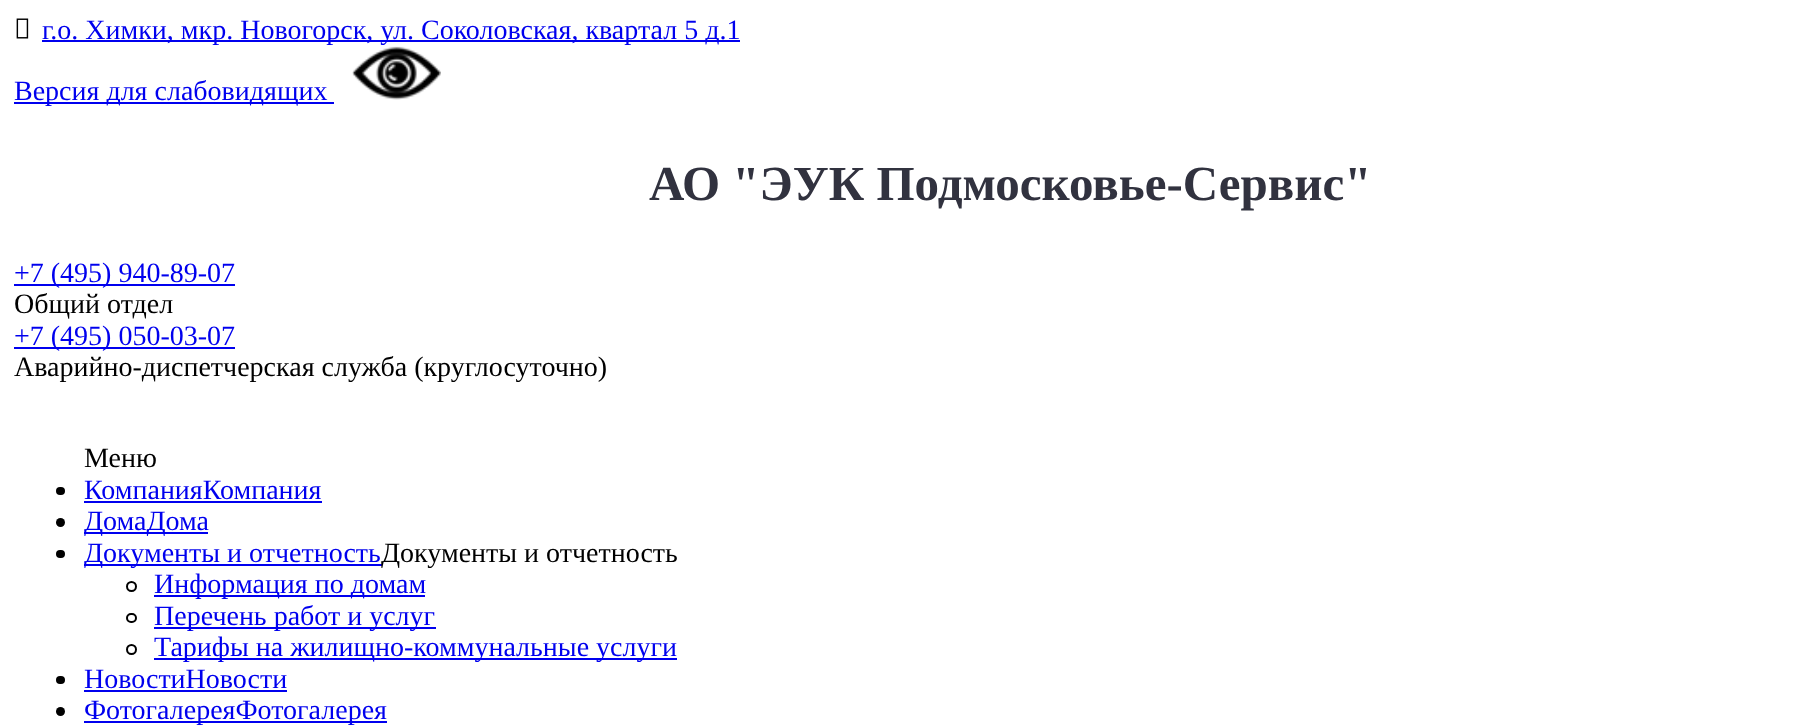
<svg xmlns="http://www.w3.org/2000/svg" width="1809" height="727">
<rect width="100%" height="100%" fill="#fff"/>
<image x="16" y="18" width="13" height="21" href="media/1.png"/>
<rect x="42" y="40" width="698" height="2" fill="#00e"/>
<text x="42" y="39" style="font-family:Liberation Serif;font-size:28px;fill:#00e">г.о. Химки, мкр. Новогорск, ул. Соколовская, квартал 5 д.1</text>
<rect x="14" y="102" width="320" height="2" fill="#00e"/>
<text x="14" y="100" style="font-family:Liberation Serif;font-size:28px;fill:#00e">Версия для слабовидящих</text>
<image x="352" y="46" width="89" height="54" href="media/2.png"/>
<text x="649" y="200" style="font-family:Liberation Serif;font-size:49px;font-weight:bold;fill:#31323f">АО "ЭУК Подмосковье-Сервис"</text>
<rect x="14" y="284" width="221" height="2" fill="#00e"/>
<text x="14" y="282" style="font-family:Liberation Serif;font-size:28px;fill:#00e">+7 (495) 940-89-07</text>
<text x="14" y="313" style="font-family:Liberation Serif;font-size:28px;fill:#000">Общий отдел</text>
<rect x="14" y="347" width="221" height="2" fill="#00e"/>
<text x="14" y="345" style="font-family:Liberation Serif;font-size:28px;fill:#00e">+7 (495) 050-03-07</text>
<text x="14" y="376" style="font-family:Liberation Serif;font-size:28px;fill:#000">Аварийно-диспетчерская служба (круглосуточно)</text>
<text x="84" y="467" style="font-family:Liberation Serif;font-size:28px;fill:#000">Меню</text>
<rect x="56" y="487" width="9" height="8" rx="4" fill="#000"/>
<text x="84" y="499" style="font-family:Liberation Serif;font-size:28px;fill:#00e">КомпанияКомпания</text>
<rect x="84" y="501" width="238" height="2" fill="#00e"/>
<circle cx="60.5" cy="522.5" r="4.5" fill="#000"/>
<rect x="84" y="532" width="124" height="2" fill="#00e"/>
<text x="84" y="530" style="font-family:Liberation Serif;font-size:28px;fill:#00e">ДомаДома</text>
<rect x="56" y="550" width="9" height="8" rx="4" fill="#000"/>
<rect x="84" y="564" width="298" height="2" fill="#00e"/>
<text x="84" y="562" style="font-family:Liberation Serif;font-size:28px;fill:#00e">Документы и отчетность</text>
<text x="381" y="562" style="font-family:Liberation Serif;font-size:28px;fill:#000">Документы и отчетность</text>
<circle cx="131.5" cy="586.5" r="4.5" fill="none" stroke="#000" stroke-width="2"/>
<rect x="154" y="595" width="271" height="2" fill="#00e"/>
<text x="154" y="593" style="font-family:Liberation Serif;font-size:28px;fill:#00e">Информация по домам</text>
<rect x="127" y="614" width="9" height="8" rx="4" fill="none" stroke="#000" stroke-width="2"/>
<rect x="154" y="627" width="282" height="2" fill="#00e"/>
<text x="154" y="625" style="font-family:Liberation Serif;font-size:28px;fill:#00e">Перечень работ и услуг</text>
<circle cx="131.5" cy="649.5" r="4.5" fill="none" stroke="#000" stroke-width="2"/>
<rect x="154" y="658" width="523" height="2" fill="#00e"/>
<text x="154" y="656" style="font-family:Liberation Serif;font-size:28px;fill:#00e">Тарифы на жилищно-коммунальные услуги</text>
<rect x="56" y="676" width="9" height="8" rx="4" fill="#000"/>
<text x="84" y="688" style="font-family:Liberation Serif;font-size:28px;fill:#00e">НовостиНовости</text>
<rect x="84" y="690" width="203" height="2" fill="#00e"/>
<circle cx="60.5" cy="711.5" r="4.5" fill="#000"/>
<rect x="84" y="721" width="303" height="2" fill="#00e"/>
<text x="84" y="719" style="font-family:Liberation Serif;font-size:28px;fill:#00e">ФотогалереяФотогалерея</text>
</svg>
